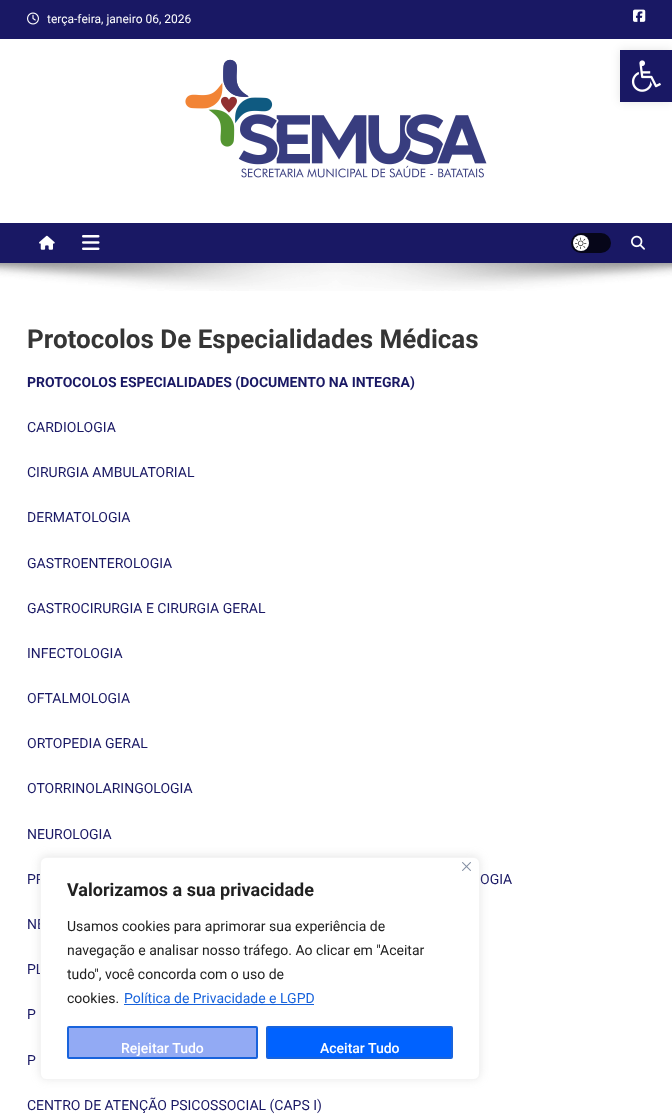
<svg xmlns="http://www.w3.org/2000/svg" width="672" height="1120">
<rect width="100%" height="100%" fill="#fff"/>
<rect width="672" height="39" fill="#191864"/>
<image x="27" y="12" width="12" height="13" href="media/1.png"/>
<text x="47" y="23" style="font-family:Roboto;font-size:12px;fill:#fff">terça-feira, janeiro 06, 2026</text>
<image x="633" y="9" width="13" height="13" href="media/2.png"/>
<image x="185" y="59" width="302" height="119" href="media/3.png"/>
<rect y="223" width="672" height="40" fill="#191864"/>
<image x="39" y="235" width="16" height="15" href="media/4.png"/>
<image x="82" y="235" width="18" height="15" href="media/5.png"/>
<rect x="571" y="233" width="40" height="20" rx="10" fill="#060619"/>
<circle cx="581" cy="243" r="8" fill="#fff"/>
<image x="575" y="237" width="12" height="12" href="media/6.png"/>
<image x="631" y="235" width="14" height="15" href="media/7.png"/>
<image x="0" y="263" width="672" height="28" href="media/8.png"/>
<text x="27" y="348" style="font-family:Roboto;font-size:26px;font-weight:bold;fill:#353535">Protocolos De Especialidades Médicas</text>
<text x="27" y="387" style="font-family:Roboto;font-size:14px;font-weight:bold;fill:#191864">PROTOCOLOS ESPECIALIDADES (DOCUMENTO NA INTEGRA)</text>
<text x="27" y="432" style="font-family:Roboto;font-size:14px;fill:#191864">CARDIOLOGIA</text>
<text x="27" y="477" style="font-family:Roboto;font-size:14px;fill:#191864">CIRURGIA AMBULATORIAL</text>
<text x="27" y="522" style="font-family:Roboto;font-size:14px;fill:#191864">DERMATOLOGIA</text>
<text x="27" y="568" style="font-family:Roboto;font-size:14px;fill:#191864">GASTROENTEROLOGIA</text>
<text x="27" y="613" style="font-family:Roboto;font-size:14px;fill:#191864">GASTROCIRURGIA E CIRURGIA GERAL</text>
<text x="27" y="658" style="font-family:Roboto;font-size:14px;fill:#191864">INFECTOLOGIA</text>
<text x="27" y="703" style="font-family:Roboto;font-size:14px;fill:#191864">OFTALMOLOGIA</text>
<text x="27" y="748" style="font-family:Roboto;font-size:14px;fill:#191864">ORTOPEDIA GERAL</text>
<text x="27" y="793" style="font-family:Roboto;font-size:14px;fill:#191864">OTORRINOLARINGOLOGIA</text>
<text x="27" y="839" style="font-family:Roboto;font-size:14px;fill:#191864">NEUROLOGIA</text>
<text x="27" y="884" style="font-family:Roboto;font-size:14px;fill:#191864">PR</text>
<text x="480" y="884" style="font-family:Roboto;font-size:14px;fill:#191864">OGIA</text>
<text x="27" y="929" style="font-family:Roboto;font-size:14px;fill:#191864">NE</text>
<text x="27" y="974" style="font-family:Roboto;font-size:14px;fill:#191864">PL</text>
<text x="27" y="1019" style="font-family:Roboto;font-size:14px;fill:#191864">P</text>
<text x="27" y="1065" style="font-family:Roboto;font-size:14px;fill:#191864">P</text>
<text x="27" y="1110" style="font-family:Roboto;font-size:14px;fill:#191864">CENTRO DE ATENÇÃO PSICOSSOCIAL (CAPS I)</text>
<rect x="620" y="50" width="52" height="52" fill="#0000001a" filter="blur(5px)"/>
<rect x="620" y="50" width="52" height="52" fill="#191864"/>
<image x="631" y="60" width="30" height="32" href="media/9.png"/>
<rect x="40" y="856" width="440" height="223" rx="6" fill="#acabab4d" filter="blur(5px)"/>
<rect x="40.5" y="857.5" width="439" height="222" rx="5.5" fill="#fff" stroke="#f4f4f4"/>
<image x="462" y="862" width="9" height="9" href="media/10.png"/>
<text x="67" y="896" style="font-family:Roboto;font-size:18px;font-weight:bold;fill:#212121">Valorizamos a sua privacidade</text>
<text x="67" y="931" style="font-family:Roboto;font-size:14px;fill:#212121">Usamos cookies para aprimorar sua experiência de</text>
<text x="67" y="955" style="font-family:Roboto;font-size:14px;fill:#212121">navegação e analisar nosso tráfego. Ao clicar em "Aceitar</text>
<text x="67" y="979" style="font-family:Roboto;font-size:14px;fill:#212121">tudo", você concorda com o uso de</text>
<text x="67" y="1003" style="font-family:Roboto;font-size:14px;fill:#212121">cookies.</text>
<text x="124" y="1003" style="font-family:Roboto;font-size:14px;fill:#1863dc">Política de Privacidade e LGPD</text>
<rect x="124" y="1004" width="190" height="1" fill="#1863dc"/>
<rect x="68" y="1027" width="189" height="31" rx="1" fill="#92aaf4" stroke="#1863dc" stroke-width="2"/>
<text x="121" y="1053" style="font-family:Roboto;font-size:14px;font-weight:500;fill:#fff">Rejeitar Tudo</text>
<rect x="267" y="1027" width="185" height="31" rx="1" fill="#0062ff" stroke="#1863dc" stroke-width="2"/>
<text x="320" y="1053" style="font-family:Roboto;font-size:14px;font-weight:500;fill:#fff">Aceitar Tudo</text>
</svg>
